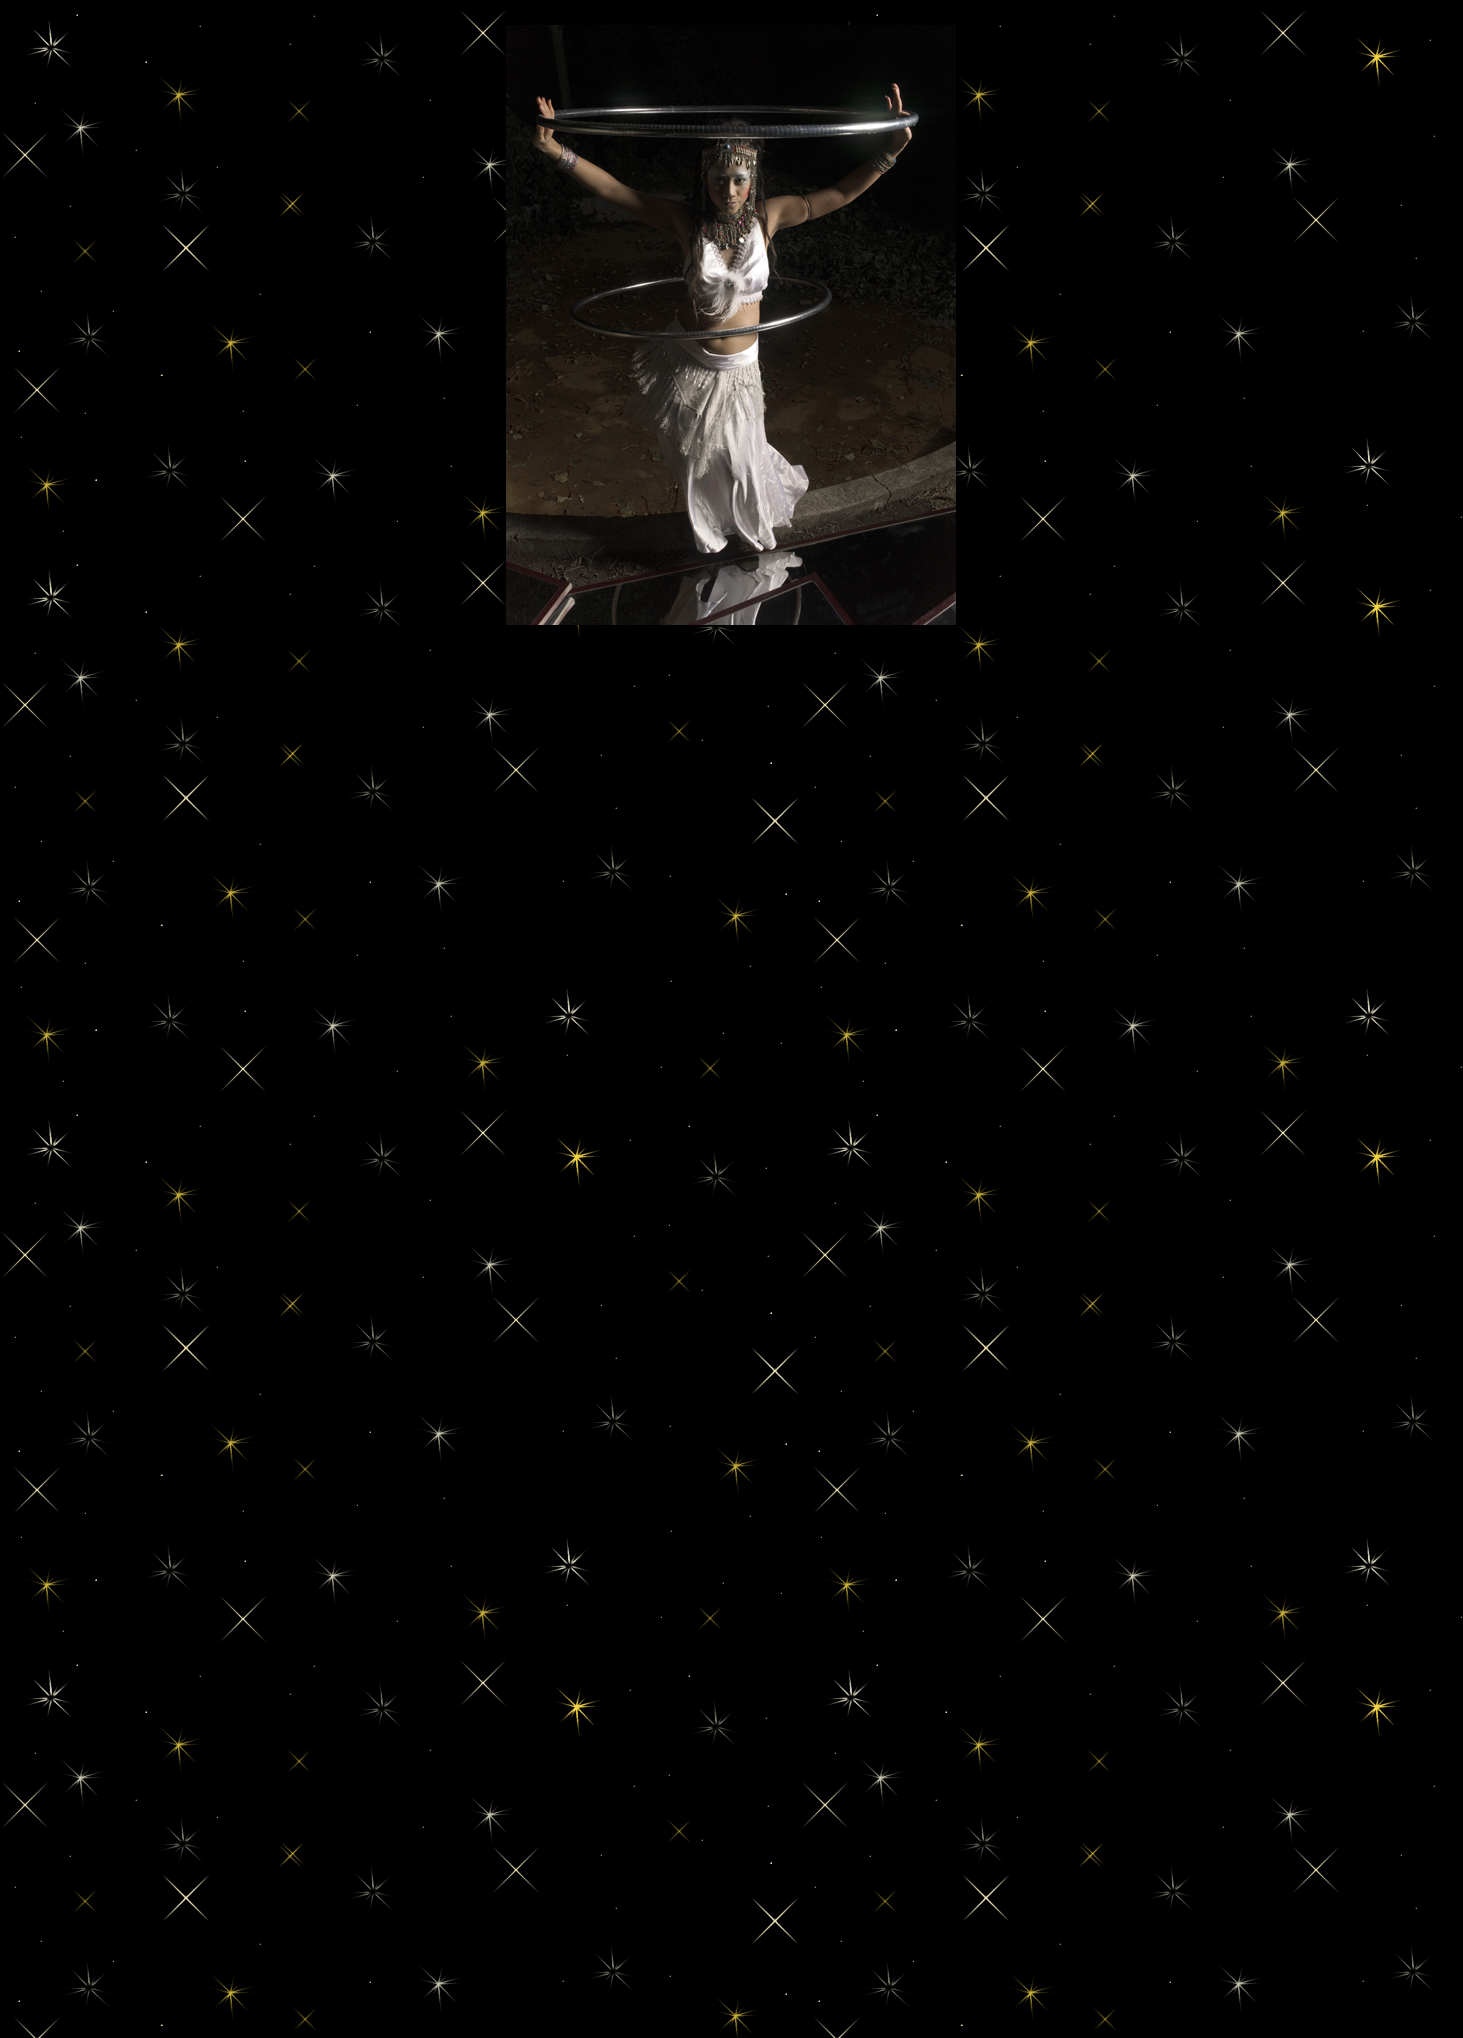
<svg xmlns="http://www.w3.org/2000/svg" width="1463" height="2038">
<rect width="100%" height="100%" fill="#000"/>
<image x="2" y="10" width="1460" height="2028" href="media/1.png"/>
<image x="506" y="25" width="450" height="600" href="media/2.png"/>
</svg>
